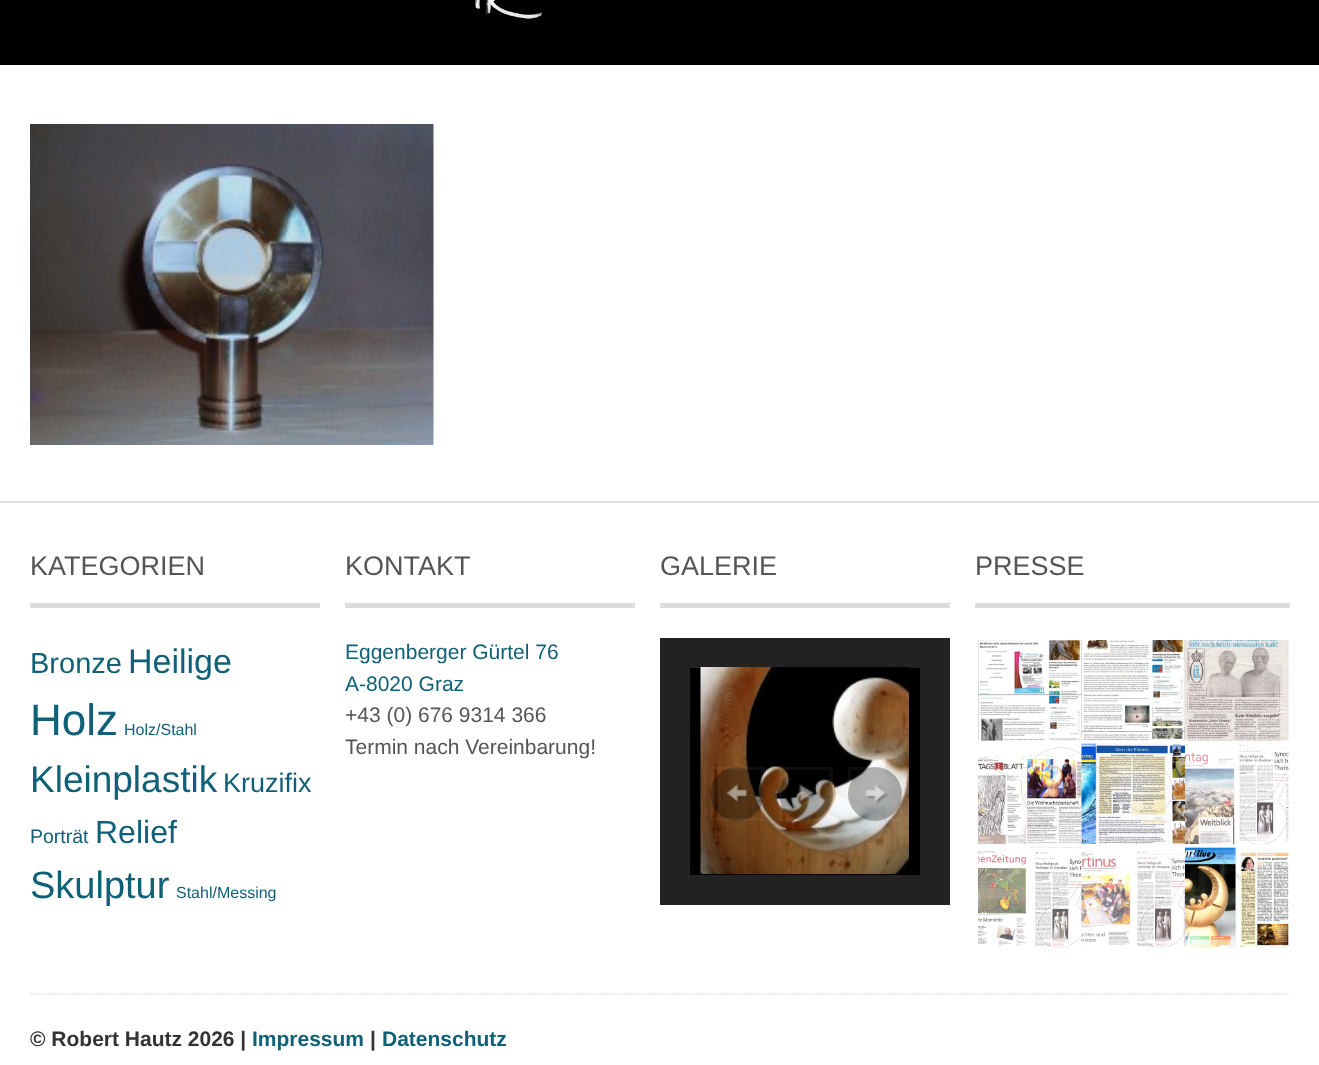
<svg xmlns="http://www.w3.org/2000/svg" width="1319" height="1065">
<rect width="100%" height="100%" fill="#fff"/>
<rect width="1319" height="65" fill="#000"/>
<image x="475" y="0" width="67" height="19" href="media/1.png"/>
<image x="30" y="124" width="404" height="321" href="media/2.png"/>
<rect y="501" width="1319" height="2" fill="#ddd"/>
<path d="M30 994h1260" fill="none" stroke="#ddd" stroke-width="1.5" stroke-dasharray="1.5 1.5"/>
<rect x="30" y="603" width="290" height="5" fill="#ddd"/>
<text x="30" y="575" style="font-family:Liberation Sans;font-size:27px;fill:#555">KATEGORIEN</text>
<text x="30" y="673" style="font-family:Liberation Sans;font-size:29px;fill:#106177">Bronze</text>
<text x="128" y="673" style="font-family:Liberation Sans;font-size:34px;fill:#106177">Heilige</text>
<text x="30" y="735" style="font-family:Liberation Sans;font-size:44px;fill:#106177">Holz</text>
<text x="124" y="735" style="font-family:Liberation Sans;font-size:16px;fill:#106177">Holz/Stahl</text>
<text x="30" y="792" style="font-family:Liberation Sans;font-size:37px;fill:#106177">Kleinplastik</text>
<text x="223" y="792" style="font-family:Liberation Sans;font-size:27px;fill:#106177">Kruzifix</text>
<text x="30" y="843" style="font-family:Liberation Sans;font-size:19.5px;fill:#106177">Porträt</text>
<text x="95" y="843" style="font-family:Liberation Sans;font-size:32px;fill:#106177">Relief</text>
<text x="30" y="898" style="font-family:Liberation Sans;font-size:38px;fill:#106177">Skulptur</text>
<text x="176" y="898" style="font-family:Liberation Sans;font-size:16px;fill:#106177">Stahl/Messing</text>
<rect x="345" y="603" width="290" height="5" fill="#ddd"/>
<text x="345" y="575" style="font-family:Liberation Sans;font-size:27px;fill:#555">KONTAKT</text>
<text x="345" y="659" style="font-family:Liberation Sans;font-size:21px;fill:#106177">Eggenberger Gürtel 76</text>
<text x="345" y="691" style="font-family:Liberation Sans;font-size:21px;fill:#106177">A-8020 Graz</text>
<text x="345" y="722" style="font-family:Liberation Sans;font-size:21px;fill:#555">+43 (0) 676 9314 366</text>
<text x="345" y="754" style="font-family:Liberation Sans;font-size:21px;fill:#555">Termin nach Vereinbarung!</text>
<rect x="660" y="603" width="290" height="5" fill="#ddd"/>
<text x="660" y="575" style="font-family:Liberation Sans;font-size:27px;fill:#555">GALERIE</text>
<rect x="675" y="653" width="260" height="237" fill="none" stroke="#222" stroke-width="30"/>
<rect x="690" y="668" width="230" height="207" fill="#000"/>
<image x="700" y="667" width="209" height="207" href="media/3.png"/>
<circle cx="737" cy="794" r="27" fill="#0000004d"/>
<image x="726" y="784" width="24" height="19" href="media/4.png"/>
<rect x="711.5" y="768.5" width="51" height="51" fill="none" stroke="#ffffff0d" stroke-width="3"/>
<circle cx="806" cy="794" r="27" fill="#0000004d"/>
<image x="799" y="784" width="17" height="19" href="media/5.png"/>
<rect x="780.5" y="768.5" width="51" height="51" fill="none" stroke="#ffffff0d" stroke-width="3"/>
<circle cx="875" cy="794" r="27" fill="#0000004d"/>
<image x="865" y="784" width="23" height="20" href="media/6.png"/>
<rect x="849.5" y="768.5" width="51" height="51" fill="none" stroke="#ffffff0d" stroke-width="3"/>
<rect x="975" y="603" width="315" height="5" fill="#ddd"/>
<text x="975" y="575" style="font-family:Liberation Sans;font-size:27px;fill:#555">PRESSE</text>
<image x="978" y="640" width="104" height="101" href="media/7.png"/>
<image x="1081" y="640" width="104" height="101" href="media/8.png"/>
<image x="1185" y="640" width="104" height="101" href="media/9.png"/>
<image x="978" y="747" width="104" height="97" href="media/10.png"/>
<image x="1081" y="743" width="104" height="101" href="media/11.png"/>
<image x="1185" y="744" width="104" height="100" href="media/12.png"/>
<image x="978" y="847" width="104" height="101" href="media/13.png"/>
<image x="1081" y="847" width="104" height="101" href="media/14.png"/>
<image x="1185" y="847" width="104" height="101" href="media/15.png"/>
<text x="30" y="1046" style="font-family:Liberation Sans;font-size:21px;font-weight:bold;fill:#333">© Robert Hautz 2026 |</text>
<text x="252" y="1046" style="font-family:Liberation Sans;font-size:21px;font-weight:bold;fill:#106177">Impressum</text>
<text x="370" y="1046" style="font-family:Liberation Sans;font-size:21px;font-weight:bold;fill:#333">|</text>
<text x="382" y="1046" style="font-family:Liberation Sans;font-size:21px;font-weight:bold;fill:#106177">Datenschutz</text>
</svg>
